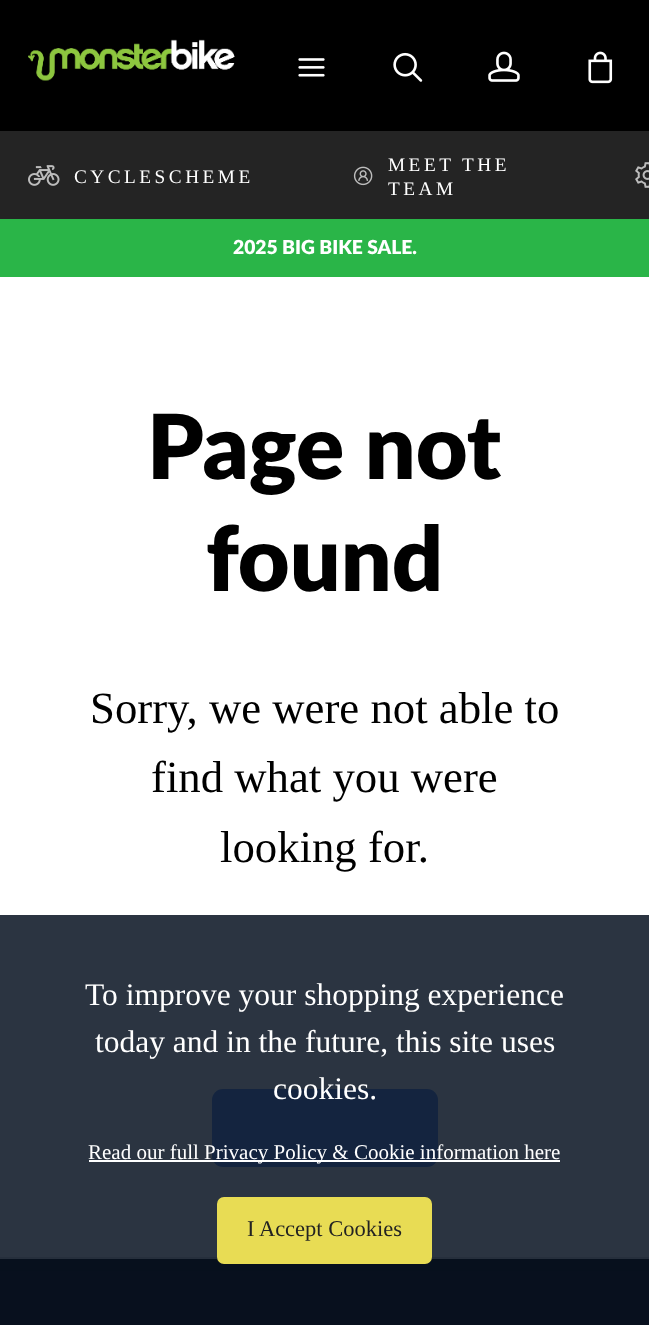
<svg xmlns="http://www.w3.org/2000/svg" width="649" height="1325">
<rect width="100%" height="100%" fill="#fff"/>
<rect width="649" height="131" fill="#000"/>
<image x="28" y="39" width="207" height="42" href="media/1.png"/>
<image x="298" y="58" width="27" height="19" href="media/2.png"/>
<image x="393" y="52" width="30" height="30" href="media/3.png"/>
<image x="488" y="51" width="32" height="31" href="media/4.png"/>
<image x="588" y="51" width="25" height="33" href="media/5.png"/>
<rect y="131" width="649" height="88" fill="#242424"/>
<image x="28" y="165" width="32" height="21" href="media/6.png"/>
<text x="74" y="183" style="font-family:Liberation Serif;font-size:19.25px;letter-spacing:3.5px;fill:#fff">CYCLESCHEME</text>
<image x="353" y="166" width="20" height="20" href="media/7.png"/>
<text x="388" y="171" style="font-family:Liberation Serif;font-size:19.25px;letter-spacing:3.5px;fill:#fff">MEET THE</text>
<text x="388" y="195" style="font-family:Liberation Serif;font-size:19.25px;letter-spacing:3.5px;fill:#fff">TEAM</text>
<image x="635" y="162" width="14" height="26" href="media/8.png"/>
<rect y="219" width="649" height="58" fill="#2ab548"/>
<text x="233" y="254" style="font-family:Lato;font-size:19.25px;font-weight:900;fill:#fff">2025 BIG BIKE SALE.</text>
<text x="147" y="479" style="font-family:Lato;font-size:89.5px;font-weight:900;fill:#000">Page not</text>
<text x="206" y="591" style="font-family:Lato;font-size:89.5px;font-weight:900;fill:#000">found</text>
<text x="90" y="723" style="font-family:Liberation Serif;font-size:44.75px;fill:#000">Sorry, we were not able to</text>
<text x="151" y="792" style="font-family:Liberation Serif;font-size:44.75px;fill:#000">find what you were</text>
<text x="220" y="862" style="font-family:Liberation Serif;font-size:44.75px;fill:#000">looking for.</text>
<rect x="212" y="1089" width="226" height="78" rx="11" fill="#6495ed"/>
<rect y="1259" width="649" height="66" fill="#111"/>
<rect y="1257" width="649" height="2" fill="#dfdfdf"/>
<rect y="915" width="649" height="410" fill="#061020d9"/>
<text x="85" y="1005" style="font-family:Liberation Serif;font-size:31.5px;fill:#fff">To improve your shopping experience</text>
<text x="95" y="1052" style="font-family:Liberation Serif;font-size:31.5px;fill:#fff">today and in the future, this site uses</text>
<text x="273" y="1099" style="font-family:Liberation Serif;font-size:31.5px;fill:#fff">cookies.</text>
<rect x="89" y="1160" width="471" height="2" fill="#fff"/>
<text x="88" y="1159" style="font-family:Liberation Serif;font-size:21px;fill:#fff">Read our full Privacy Policy &amp; Cookie information here</text>
<rect x="218" y="1198" width="213" height="65" rx="6" fill="#e8dc54" stroke="#e8dc54" stroke-width="2"/>
<text x="247" y="1236" style="font-family:Liberation Serif;font-size:22.5px;fill:#222">I Accept Cookies</text>
</svg>
